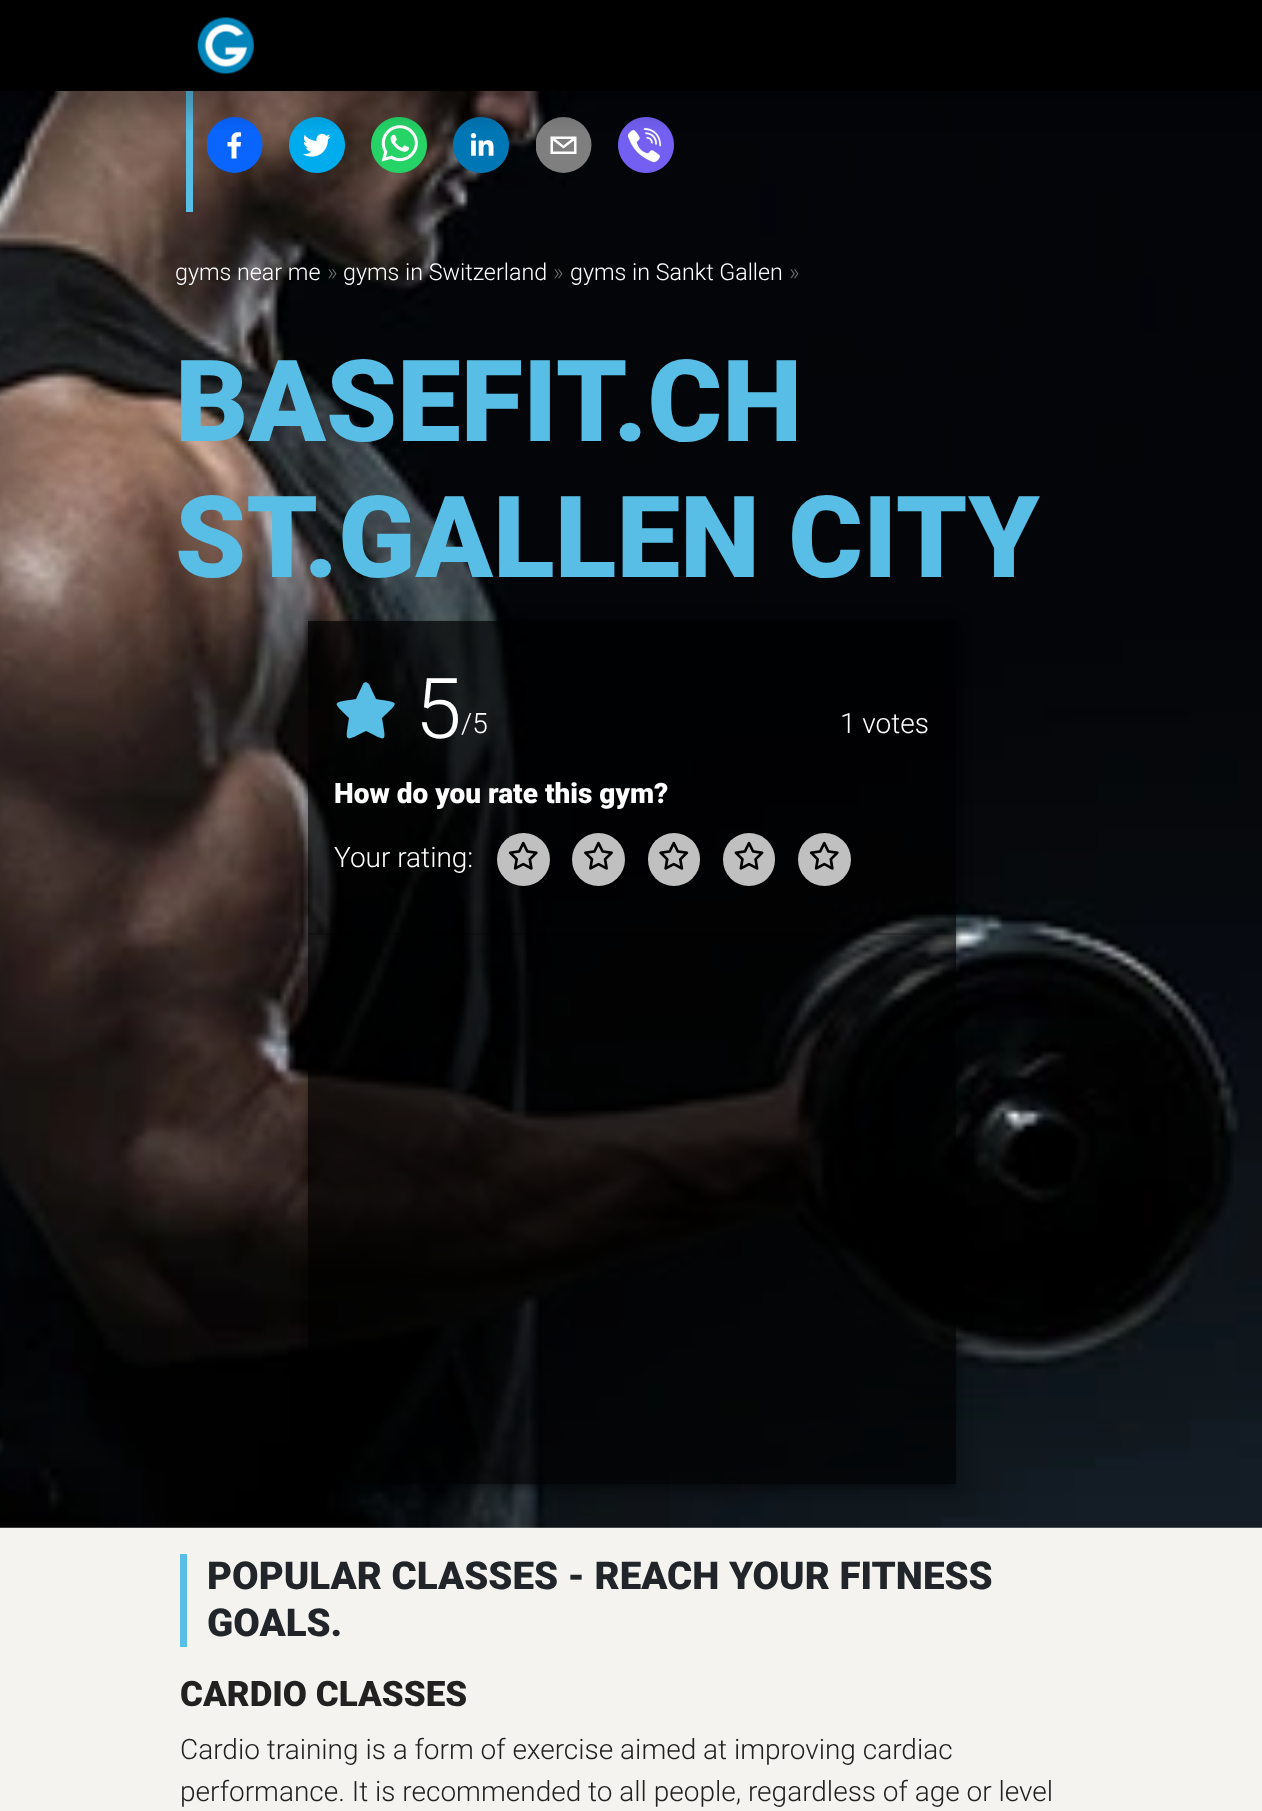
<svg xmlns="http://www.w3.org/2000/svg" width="1262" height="1811">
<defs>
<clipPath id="clip1"><rect x="207" y="117" width="56" height="56"/></clipPath>
<clipPath id="clip2"><rect x="536" y="117" width="56" height="56"/></clipPath>
<clipPath id="clip3"><rect x="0" y="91" width="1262" height="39"/></clipPath>
<clipPath id="clip4"><path d="M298 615h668v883h-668zm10 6h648v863h-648z" clip-rule="evenodd"/></clipPath>
<clipPath id="clip5"><path d="M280 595h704v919h-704zm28 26h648v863h-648z" clip-rule="evenodd"/></clipPath>
<clipPath id="clip6"><path d="M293 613h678v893h-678zm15 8h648v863h-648z" clip-rule="evenodd"/></clipPath>
</defs>
<rect width="100%" height="100%" fill="#000"/>
<rect y="1527" width="1262" height="284" fill="#f4f3ef"/>
<image x="0" y="91" width="1262" height="1437" href="media/2.png"/>
<rect x="186" y="91" width="7" height="121" fill="#59bee5"/>
<g clip-path="url(#clip1)">
<circle cx="234.5" cy="145" r="28" fill="#0965fe"/>
</g>
<path d="M236.5 158.5v-12h4l.5-4.5h-4.5c0-5-.5-5.5 4.5-5.5v-4c-4-1-8.5 0-9.5 4.5v5h-4v4.5h4v12z" fill="#fff"/>
<image x="289" y="117" width="56" height="56" href="media/3.png"/>
<image x="371" y="117" width="56" height="56" href="media/4.png"/>
<image x="453" y="117" width="56" height="56" href="media/5.png"/>
<g clip-path="url(#clip2)">
<circle cx="563.5" cy="145" r="28" fill="#7f7f7f"/>
</g>
<path d="M550.5 136.5v17.5h26v-17.5zm21 2.5l-8 6.5l-8-6.5zm-18.5 12.5v-11l10.5 8l10.5-8v11z" fill="#fff"/>
<image x="618" y="117" width="56" height="56" href="media/6.png"/>
<g clip-path="url(#clip3)">
<rect y="21" width="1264" height="91" fill="#0000003d" filter="blur(13px)"/>
</g>
<image x="197" y="17" width="57" height="57" href="media/1.png"/>
<text x="175" y="280" style="font-family:Roboto;font-size:23.25px;font-weight:300;fill:#fff">gyms near me</text>
<text x="327" y="280" style="font-family:Roboto;font-size:23.25px;font-weight:300;fill:#6e6e6e">»</text>
<text x="343" y="280" style="font-family:Roboto;font-size:23.25px;font-weight:300;fill:#fff">gyms in Switzerland</text>
<text x="553" y="280" style="font-family:Roboto;font-size:23.25px;font-weight:300;fill:#6e6e6e">»</text>
<text x="570" y="280" style="font-family:Roboto;font-size:23.25px;font-weight:300;fill:#fff">gyms in Sankt Gallen</text>
<text x="789" y="280" style="font-family:Roboto;font-size:23.25px;font-weight:300;fill:#6e6e6e">»</text>
<text x="175" y="441" style="font-family:Roboto;font-size:113.75px;font-weight:900;fill:#59bee5">BASEFIT.CH</text>
<text x="175" y="577" style="font-family:Roboto;font-size:113.75px;font-weight:900;fill:#59bee5">ST.GALLEN CITY</text>
<g clip-path="url(#clip4)">
<rect x="310" y="627" width="644" height="859" fill="#0000004d" filter="blur(3.5px)"/>
</g>
<g clip-path="url(#clip5)">
<rect x="308" y="623" width="648" height="863" fill="#0000001f" filter="blur(9px)"/>
</g>
<g clip-path="url(#clip6)">
<rect x="308" y="628" width="648" height="863" fill="#00000024" filter="blur(4.5px)"/>
</g>
<rect x="308" y="621" width="648" height="863" fill="#000000b3"/>
<path d="M369 684c-1-1-2-1-3-2c-2 1-3 1-3 2l-7 15c-25 4-24 2-7 19c-4 25-5 24 17 13c22 11 20 12 16-13c18-17 18-15-6-19z" fill="#59bee5"/>
<text x="415" y="738" style="font-family:Roboto;font-size:84px;font-weight:300;fill:#fff">5</text>
<text x="461" y="733" style="font-family:Roboto;font-size:28px;font-weight:300;fill:#fff">/5</text>
<text x="840" y="733" style="font-family:Roboto;font-size:28px;font-weight:300;fill:#fff">1 votes</text>
<text x="334" y="803" style="font-family:Roboto;font-size:28px;font-weight:900;fill:#fff">How do you rate this gym?</text>
<text x="334" y="867" style="font-family:Roboto;font-size:28px;font-weight:300;fill:#fff">Your rating:</text>
<circle cx="523.5" cy="859.5" r="26.5" fill="#c0c0c0"/>
<image x="508" y="841" width="30" height="29" href="media/7.png"/>
<circle cx="598.5" cy="859.5" r="26.5" fill="#c0c0c0"/>
<image x="584" y="841" width="29" height="29" href="media/8.png"/>
<rect x="648" y="833" width="52" height="53" rx="26" fill="#c0c0c0"/>
<image x="659" y="841" width="30" height="29" href="media/9.png"/>
<rect x="723" y="833" width="52" height="53" rx="26" fill="#c0c0c0"/>
<image x="734" y="841" width="30" height="29" href="media/10.png"/>
<circle cx="824.5" cy="859.5" r="26.5" fill="#c0c0c0"/>
<image x="809" y="841" width="30" height="29" href="media/7.png"/>
<rect x="308" y="933" width="648" height="2" fill="#0000002e"/>
<rect x="180" y="1554" width="7" height="93" fill="#59bee5"/>
<text x="207" y="1589" style="font-family:Roboto;font-size:38.5px;font-weight:900;fill:#212529">POPULAR CLASSES - REACH YOUR FITNESS</text>
<text x="207" y="1636" style="font-family:Roboto;font-size:38.5px;font-weight:900;fill:#212529">GOALS.</text>
<text x="180" y="1706" style="font-family:Roboto;font-size:35px;font-weight:900;fill:#212121">CARDIO CLASSES</text>
<text x="180" y="1759" style="font-family:Roboto;font-size:28px;font-weight:300;fill:#212121">Cardio training is a form of exercise aimed at improving cardiac</text>
<text x="180" y="1801" style="font-family:Roboto;font-size:28px;font-weight:300;fill:#212121">performance. It is recommended to all people, regardless of age or level</text>
</svg>
